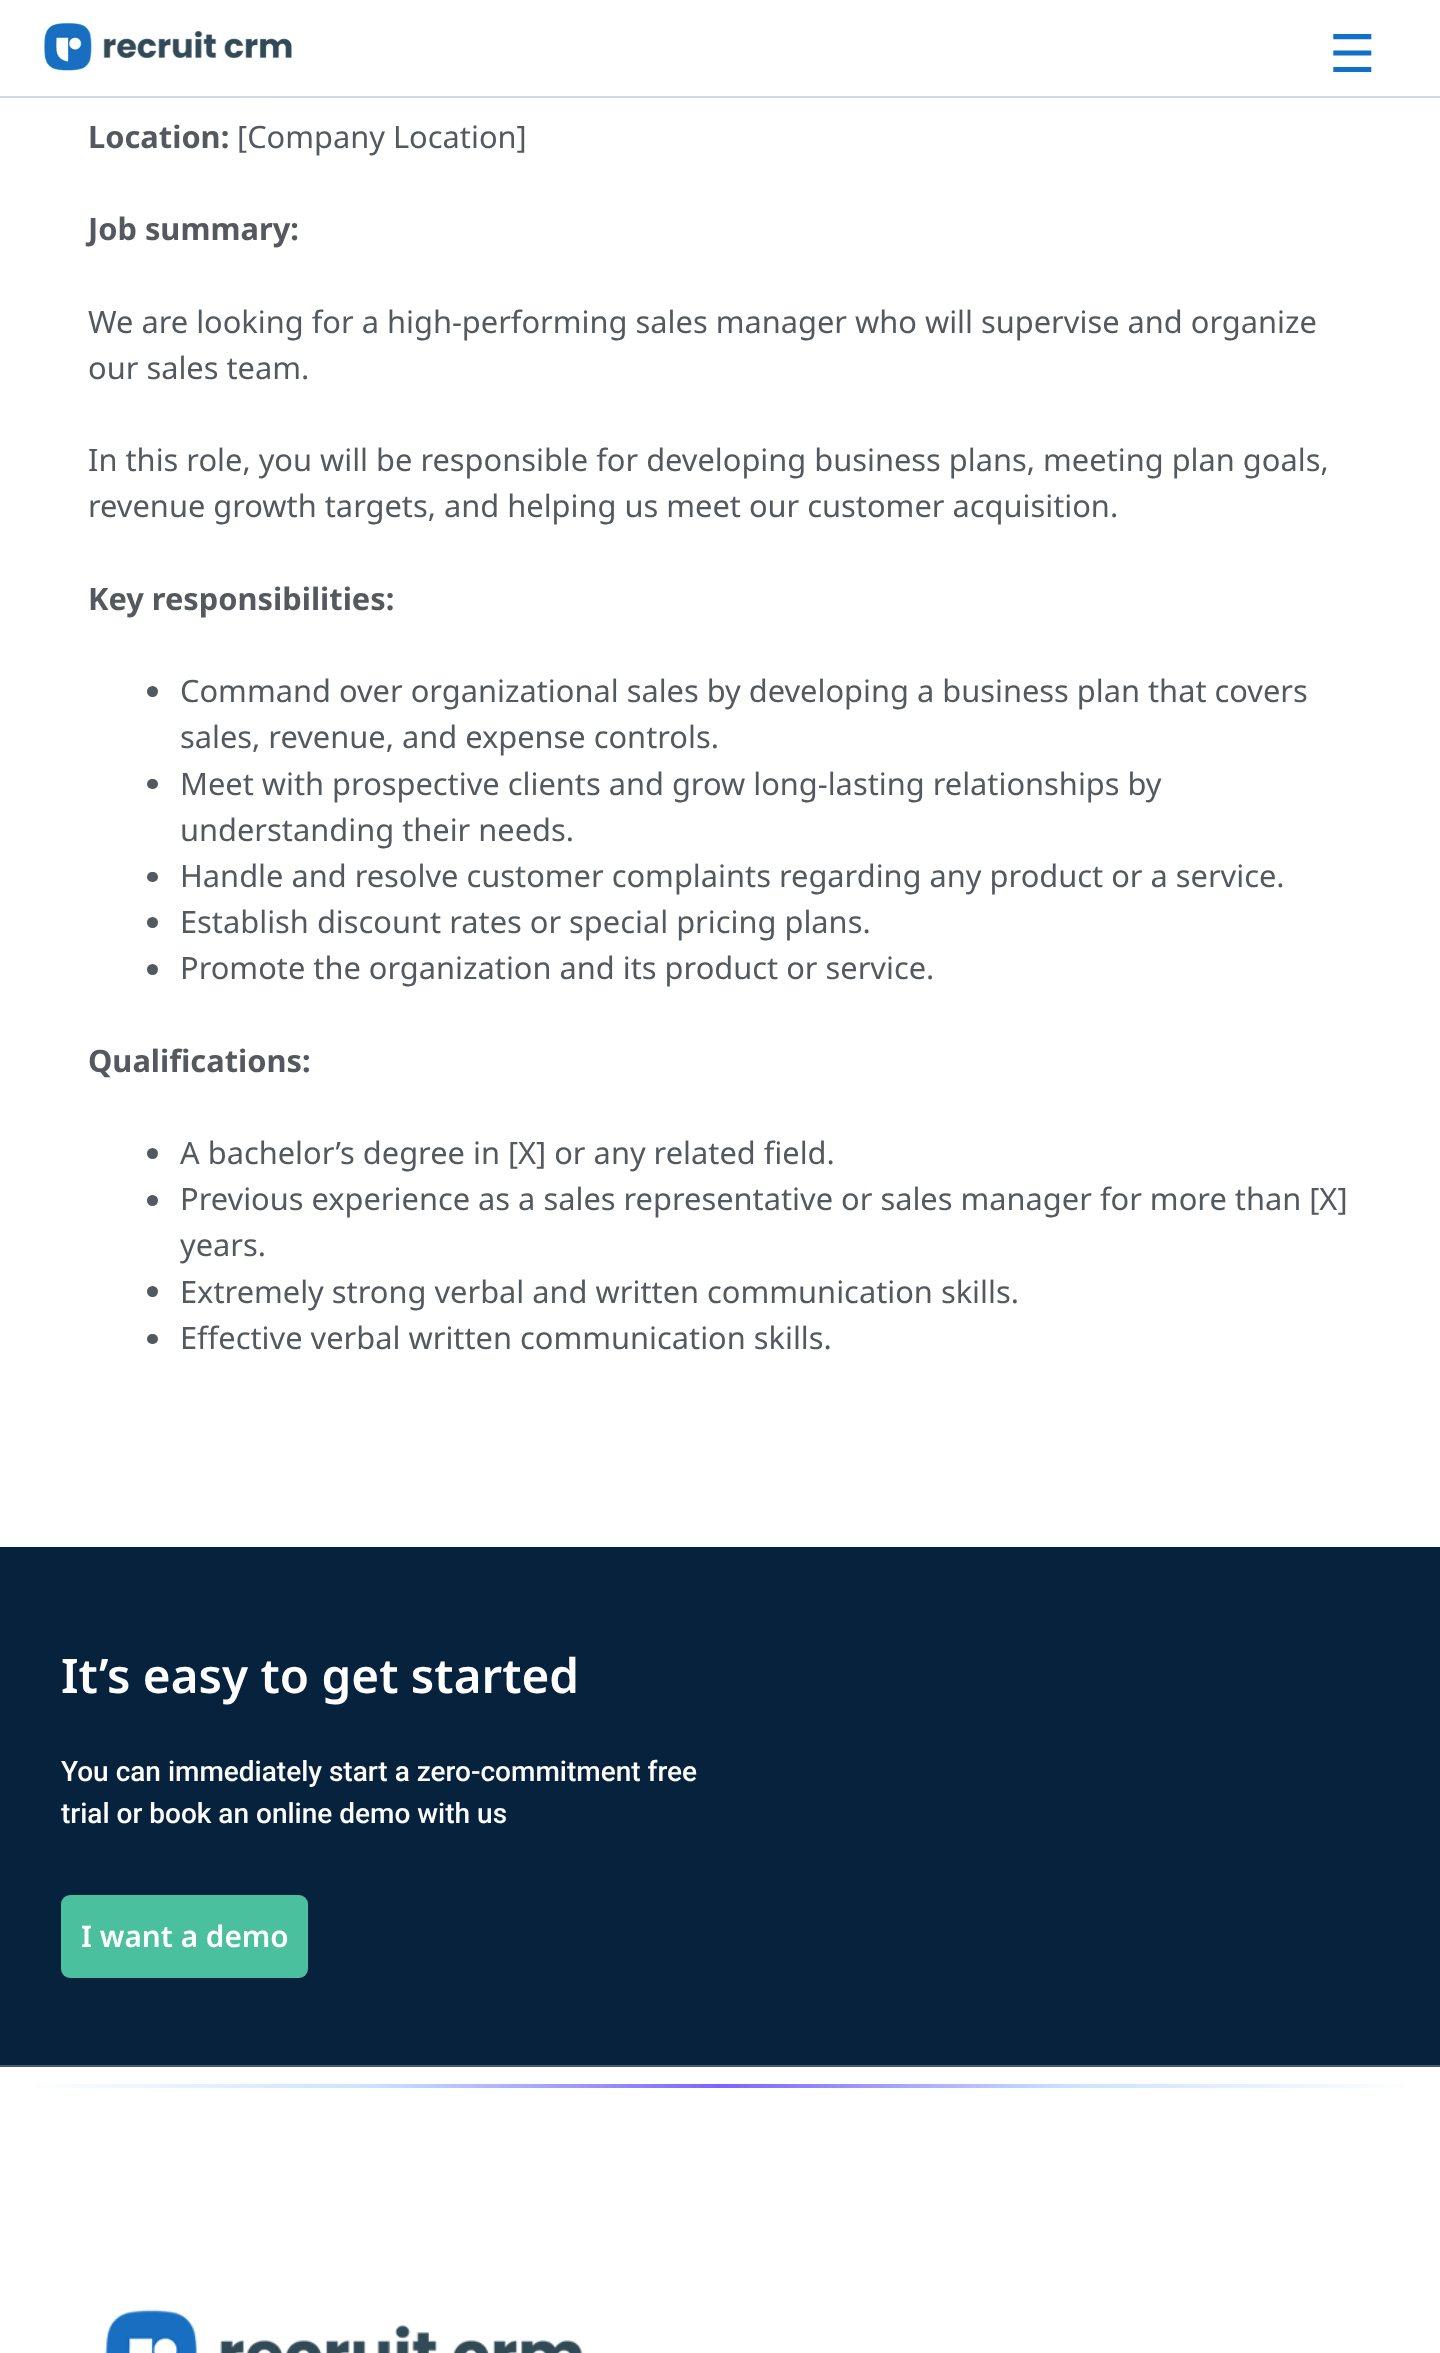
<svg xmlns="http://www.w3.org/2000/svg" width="1440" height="2353">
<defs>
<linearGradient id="g1" gradientUnits="userSpaceOnUse" x1="18" y1="2086" x2="1423" y2="2086"><stop offset="0" stop-color="#fff"/><stop offset="0.25" stop-color="#cce3ff"/><stop offset="0.5" stop-color="#7d63ff"/><stop offset="0.75" stop-color="#cce3ff"/><stop offset="1" stop-color="#fff"/></linearGradient>
</defs>
<rect width="100%" height="100%" fill="#fff"/>
<rect y="96" width="1440" height="2" fill="#cfd9e6"/>
<image x="43" y="22" width="249" height="49" href="media/1.png"/>
<text x="1329" y="72" style="font-family:DejaVu Sans;font-size:52px;fill:#1070ca">☰</text>
<text x="88" y="148" style="font-family:Noto Sans;font-size:30.8px;font-weight:bold;fill:#54595f">Location:</text>
<text x="237" y="148" style="font-family:Noto Sans;font-size:30.8px;fill:#54595f">[Company Location]</text>
<text x="88" y="240" style="font-family:Noto Sans;font-size:30.8px;font-weight:bold;fill:#54595f">Job summary:</text>
<text x="88" y="333" style="font-family:Noto Sans;font-size:30.8px;fill:#54595f">We are looking for a high-performing sales manager who will supervise and organize</text>
<text x="88" y="379" style="font-family:Noto Sans;font-size:30.8px;fill:#54595f">our sales team.</text>
<text x="88" y="471" style="font-family:Noto Sans;font-size:30.8px;fill:#54595f">In this role, you will be responsible for developing business plans, meeting plan goals,</text>
<text x="88" y="517" style="font-family:Noto Sans;font-size:30.8px;fill:#54595f">revenue growth targets, and helping us meet our customer acquisition.</text>
<text x="88" y="610" style="font-family:Noto Sans;font-size:30.8px;font-weight:bold;fill:#54595f">Key responsibilities:</text>
<circle cx="152.5" cy="691.5" r="5.5" fill="#54595f"/>
<text x="180" y="702" style="font-family:Noto Sans;font-size:30.8px;fill:#54595f">Command over organizational sales by developing a business plan that covers</text>
<text x="180" y="748" style="font-family:Noto Sans;font-size:30.8px;fill:#54595f">sales, revenue, and expense controls.</text>
<rect x="147" y="779" width="11" height="10" rx="5" fill="#54595f"/>
<text x="180" y="795" style="font-family:Noto Sans;font-size:30.8px;fill:#54595f">Meet with prospective clients and grow long-lasting relationships by</text>
<text x="180" y="841" style="font-family:Noto Sans;font-size:30.8px;fill:#54595f">understanding their needs.</text>
<rect x="147" y="872" width="11" height="10" rx="5" fill="#54595f"/>
<text x="180" y="887" style="font-family:Noto Sans;font-size:30.8px;fill:#54595f">Handle and resolve customer complaints regarding any product or a service.</text>
<circle cx="152.5" cy="922.5" r="5.5" fill="#54595f"/>
<text x="180" y="933" style="font-family:Noto Sans;font-size:30.8px;fill:#54595f">Establish discount rates or special pricing plans.</text>
<circle cx="152.5" cy="969.5" r="5.5" fill="#54595f"/>
<text x="180" y="979" style="font-family:Noto Sans;font-size:30.8px;fill:#54595f">Promote the organization and its product or service.</text>
<text x="88" y="1072" style="font-family:Noto Sans;font-size:30.8px;font-weight:bold;fill:#54595f">Qualifications:</text>
<circle cx="152.5" cy="1153.5" r="5.5" fill="#54595f"/>
<text x="180" y="1164" style="font-family:Noto Sans;font-size:30.8px;fill:#54595f">A bachelor’s degree in [X] or any related field.</text>
<circle cx="152.5" cy="1200.5" r="5.5" fill="#54595f"/>
<text x="180" y="1210" style="font-family:Noto Sans;font-size:30.8px;fill:#54595f">Previous experience as a sales representative or sales manager for more than [X]</text>
<text x="180" y="1256" style="font-family:Noto Sans;font-size:30.8px;fill:#54595f">years.</text>
<circle cx="152.5" cy="1291.5" r="5.5" fill="#54595f"/>
<text x="180" y="1303" style="font-family:Noto Sans;font-size:30.8px;fill:#54595f">Extremely strong verbal and written communication skills.</text>
<rect x="147" y="1334" width="11" height="10" rx="5" fill="#54595f"/>
<text x="180" y="1349" style="font-family:Noto Sans;font-size:30.8px;fill:#54595f">Effective verbal written communication skills.</text>
<rect y="1547" width="1440" height="518" fill="#06223d"/>
<rect y="2065" width="1440" height="2" fill="#455a6e"/>
<text x="61" y="1693" style="font-family:Noto Sans;font-size:47.6px;font-weight:600;fill:#fff">It’s easy to get started</text>
<text x="61" y="1781" style="font-family:Roboto;font-size:28px;font-weight:500;fill:#fff">You can immediately start a zero-commitment free</text>
<text x="61" y="1823" style="font-family:Roboto;font-size:28px;font-weight:500;fill:#fff">trial or book an online demo with us</text>
<rect x="61" y="1895" width="247" height="83" rx="9" fill="#4bc09f"/>
<text x="81" y="1947" style="font-family:Noto Sans;font-size:29.75px;font-weight:600;fill:#fff">I want a demo</text>
<rect x="35" y="2084" width="1371" height="4" fill="url(#g1)"/>
<image x="105" y="2309" width="478" height="44" href="media/2.png"/>
</svg>
